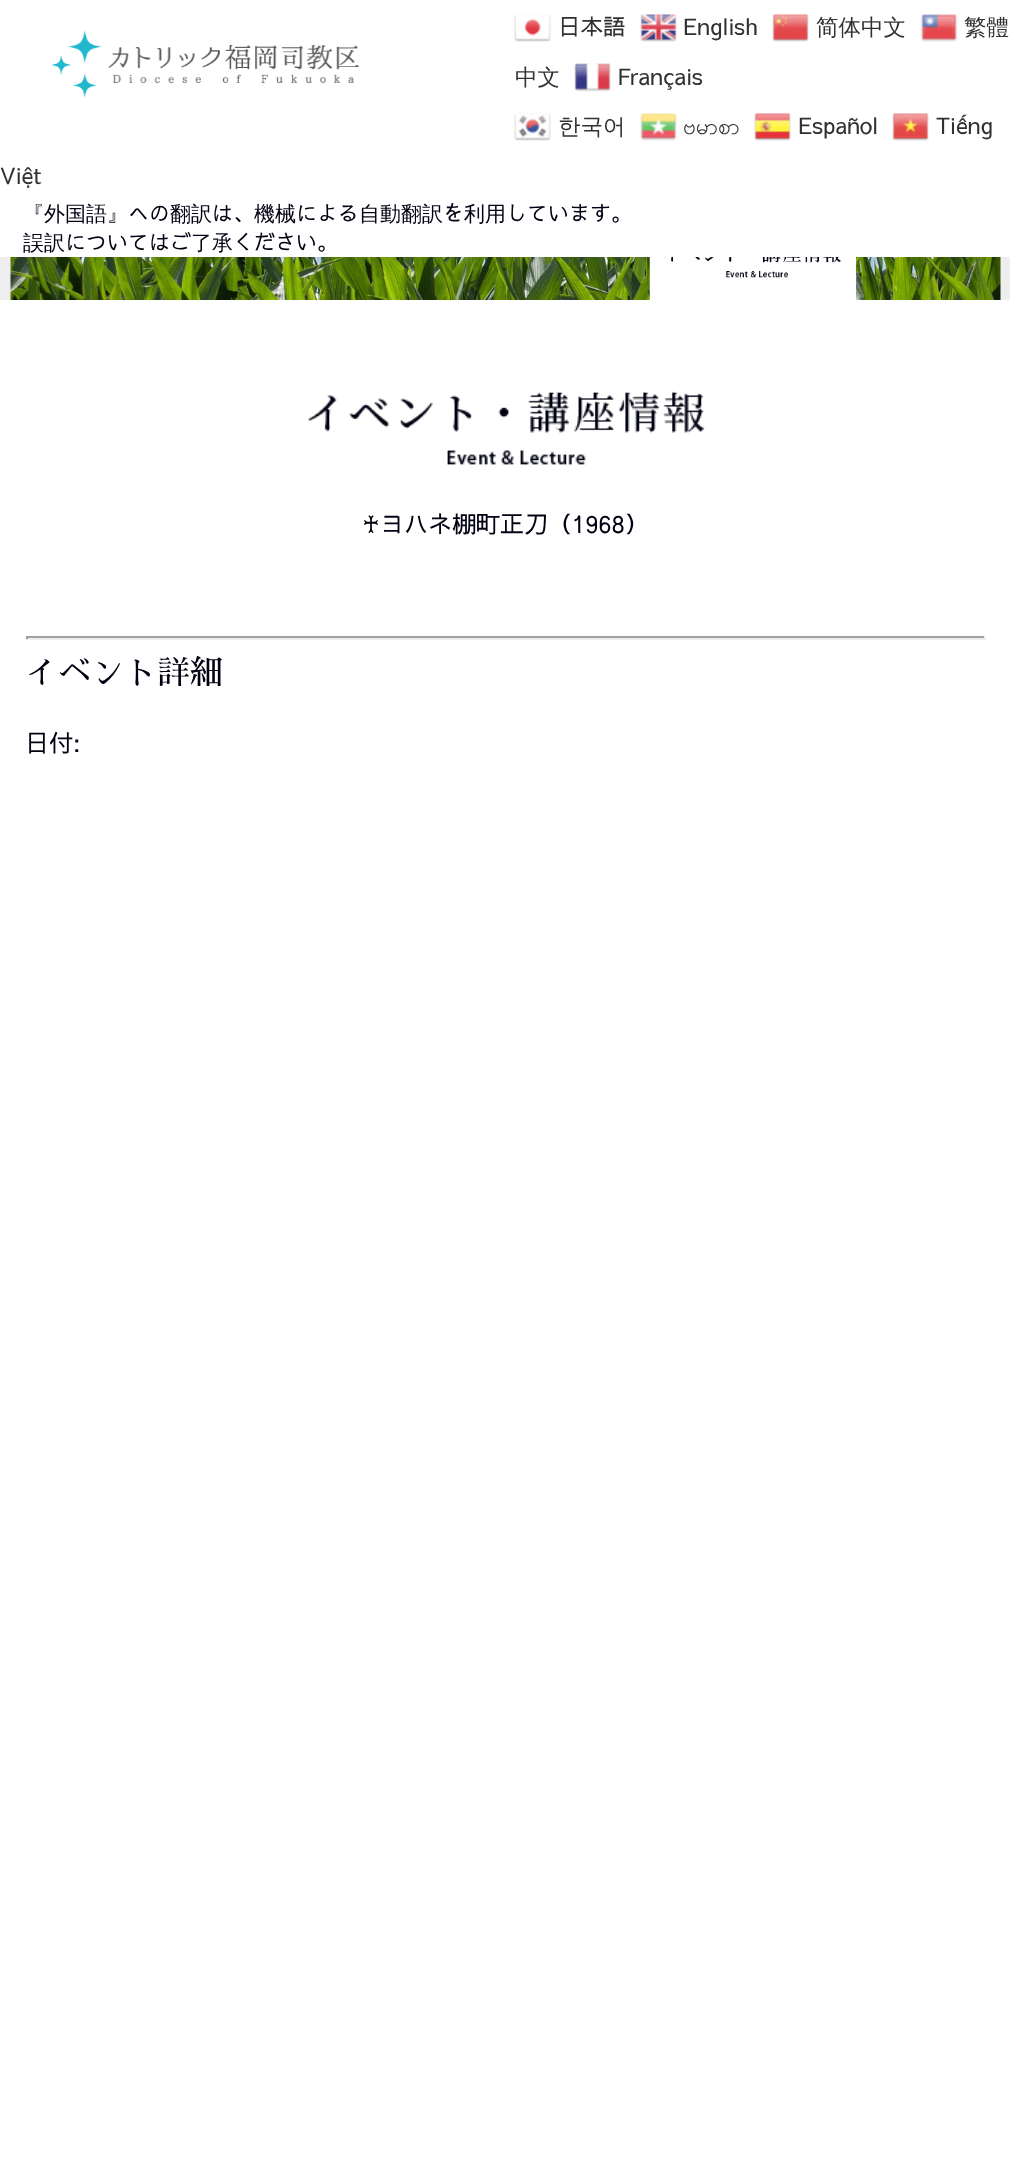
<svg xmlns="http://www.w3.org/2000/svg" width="1010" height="2178">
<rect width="100%" height="100%" fill="#fff"/>
<image x="514" y="14" width="37" height="28" href="media/1.png"/>
<text x="558" y="35" style="font-family:Sawarabi Gothic;font-size:22.5px;fill:#313131">日本語</text>
<image x="640" y="14" width="37" height="28" href="media/2.png"/>
<text x="683" y="35" style="font-family:Sawarabi Gothic;font-size:22.5px;fill:#313131">English</text>
<image x="772" y="14" width="37" height="28" href="media/3.png"/>
<text x="816" y="35" style="font-family:WenQuanYi Zen Hei;font-size:22.5px;font-weight:500;fill:#313131">简体中文</text>
<image x="920" y="14" width="38" height="28" href="media/4.png"/>
<text x="964" y="35" style="font-family:WenQuanYi Zen Hei;font-size:22.5px;font-weight:500;fill:#313131">繁體</text>
<text x="515" y="85" style="font-family:WenQuanYi Zen Hei;font-size:22.5px;font-weight:500;fill:#313131">中文</text>
<image x="574" y="63" width="37" height="29" href="media/5.png"/>
<text x="617" y="85" style="font-family:Sawarabi Gothic;font-size:22.5px;fill:#313131">Français</text>
<image x="514" y="113" width="37" height="28" href="media/6.png"/>
<text x="558" y="134" style="font-family:WenQuanYi Zen Hei;font-size:22.5px;font-weight:500;fill:#313131">한국어</text>
<image x="640" y="113" width="37" height="28" href="media/7.png"/>
<text x="683" y="134" style="font-family:Padauk;font-size:22.5px;fill:#313131">ဗမာစာ</text>
<image x="754" y="113" width="37" height="28" href="media/8.png"/>
<text x="798" y="134" style="font-family:Sawarabi Gothic;font-size:22.5px;fill:#313131">Español</text>
<image x="892" y="113" width="37" height="28" href="media/9.png"/>
<text x="936" y="134" style="font-family:Sawarabi Gothic;font-size:22.5px;fill:#313131">Tiếng</text>
<text x="0" y="184" style="font-family:Sawarabi Gothic;font-size:22.5px;fill:#313131">Việt</text>
<text x="23" y="221" style="font-family:WenQuanYi Zen Hei;font-size:21px;font-weight:500;fill:#000111">『外国語』</text>
<text x="128" y="221" style="font-family:Sawarabi Gothic;font-size:21px;fill:#000111">への</text>
<text x="170" y="221" style="font-family:WenQuanYi Zen Hei;font-size:21px;font-weight:500;fill:#000111">翻訳</text>
<text x="212" y="221" style="font-family:Sawarabi Gothic;font-size:21px;fill:#000111">は、</text>
<text x="254" y="221" style="font-family:WenQuanYi Zen Hei;font-size:21px;font-weight:500;fill:#000111">機械</text>
<text x="296" y="221" style="font-family:Sawarabi Gothic;font-size:21px;fill:#000111">による</text>
<text x="359" y="221" style="font-family:WenQuanYi Zen Hei;font-size:21px;font-weight:500;fill:#000111">自動翻訳</text>
<text x="443" y="221" style="font-family:Sawarabi Gothic;font-size:21px;fill:#000111">を</text>
<text x="464" y="221" style="font-family:WenQuanYi Zen Hei;font-size:21px;font-weight:500;fill:#000111">利用</text>
<text x="506" y="221" style="font-family:Sawarabi Gothic;font-size:21px;fill:#000111">しています。</text>
<text x="23" y="250" style="font-family:WenQuanYi Zen Hei;font-size:21px;font-weight:500;fill:#000111">誤訳</text>
<text x="65" y="250" style="font-family:Sawarabi Gothic;font-size:21px;fill:#000111">についてはご</text>
<text x="191" y="250" style="font-family:WenQuanYi Zen Hei;font-size:21px;font-weight:500;fill:#000111">了承</text>
<text x="233" y="250" style="font-family:Sawarabi Gothic;font-size:21px;fill:#000111">ください。</text>
<image x="51" y="30" width="308" height="68" href="media/10.png"/>
<rect y="257" width="1010" height="43" fill="#eee"/>
<image x="10" y="257" width="991" height="43" href="media/11.png"/>
<image x="308" y="391" width="397" height="74" href="media/12.png"/>
<text x="362" y="533" style="font-family:DejaVu Sans;font-size:24px;fill:#000111">♰</text>
<text x="380" y="533" style="font-family:Sawarabi Gothic;font-size:24px;fill:#000111">ヨハネ棚町正刀（1968）</text>
<rect x="26" y="636" width="960" height="2" fill="#9f9f9f"/>
<rect x="984" y="636" width="2" height="3" fill="#eee"/>
<rect x="26" y="638" width="960" height="2" fill="#eee"/>
<rect x="26" y="636" width="2" height="3" fill="#9f9f9f"/>
<text x="25" y="684" style="font-family:Sawarabi Mincho;font-size:33px;fill:#000111">イベント詳細</text>
<text x="25" y="752" style="font-family:Sawarabi Gothic;font-size:24px;fill:#000111">日付:</text>
</svg>
